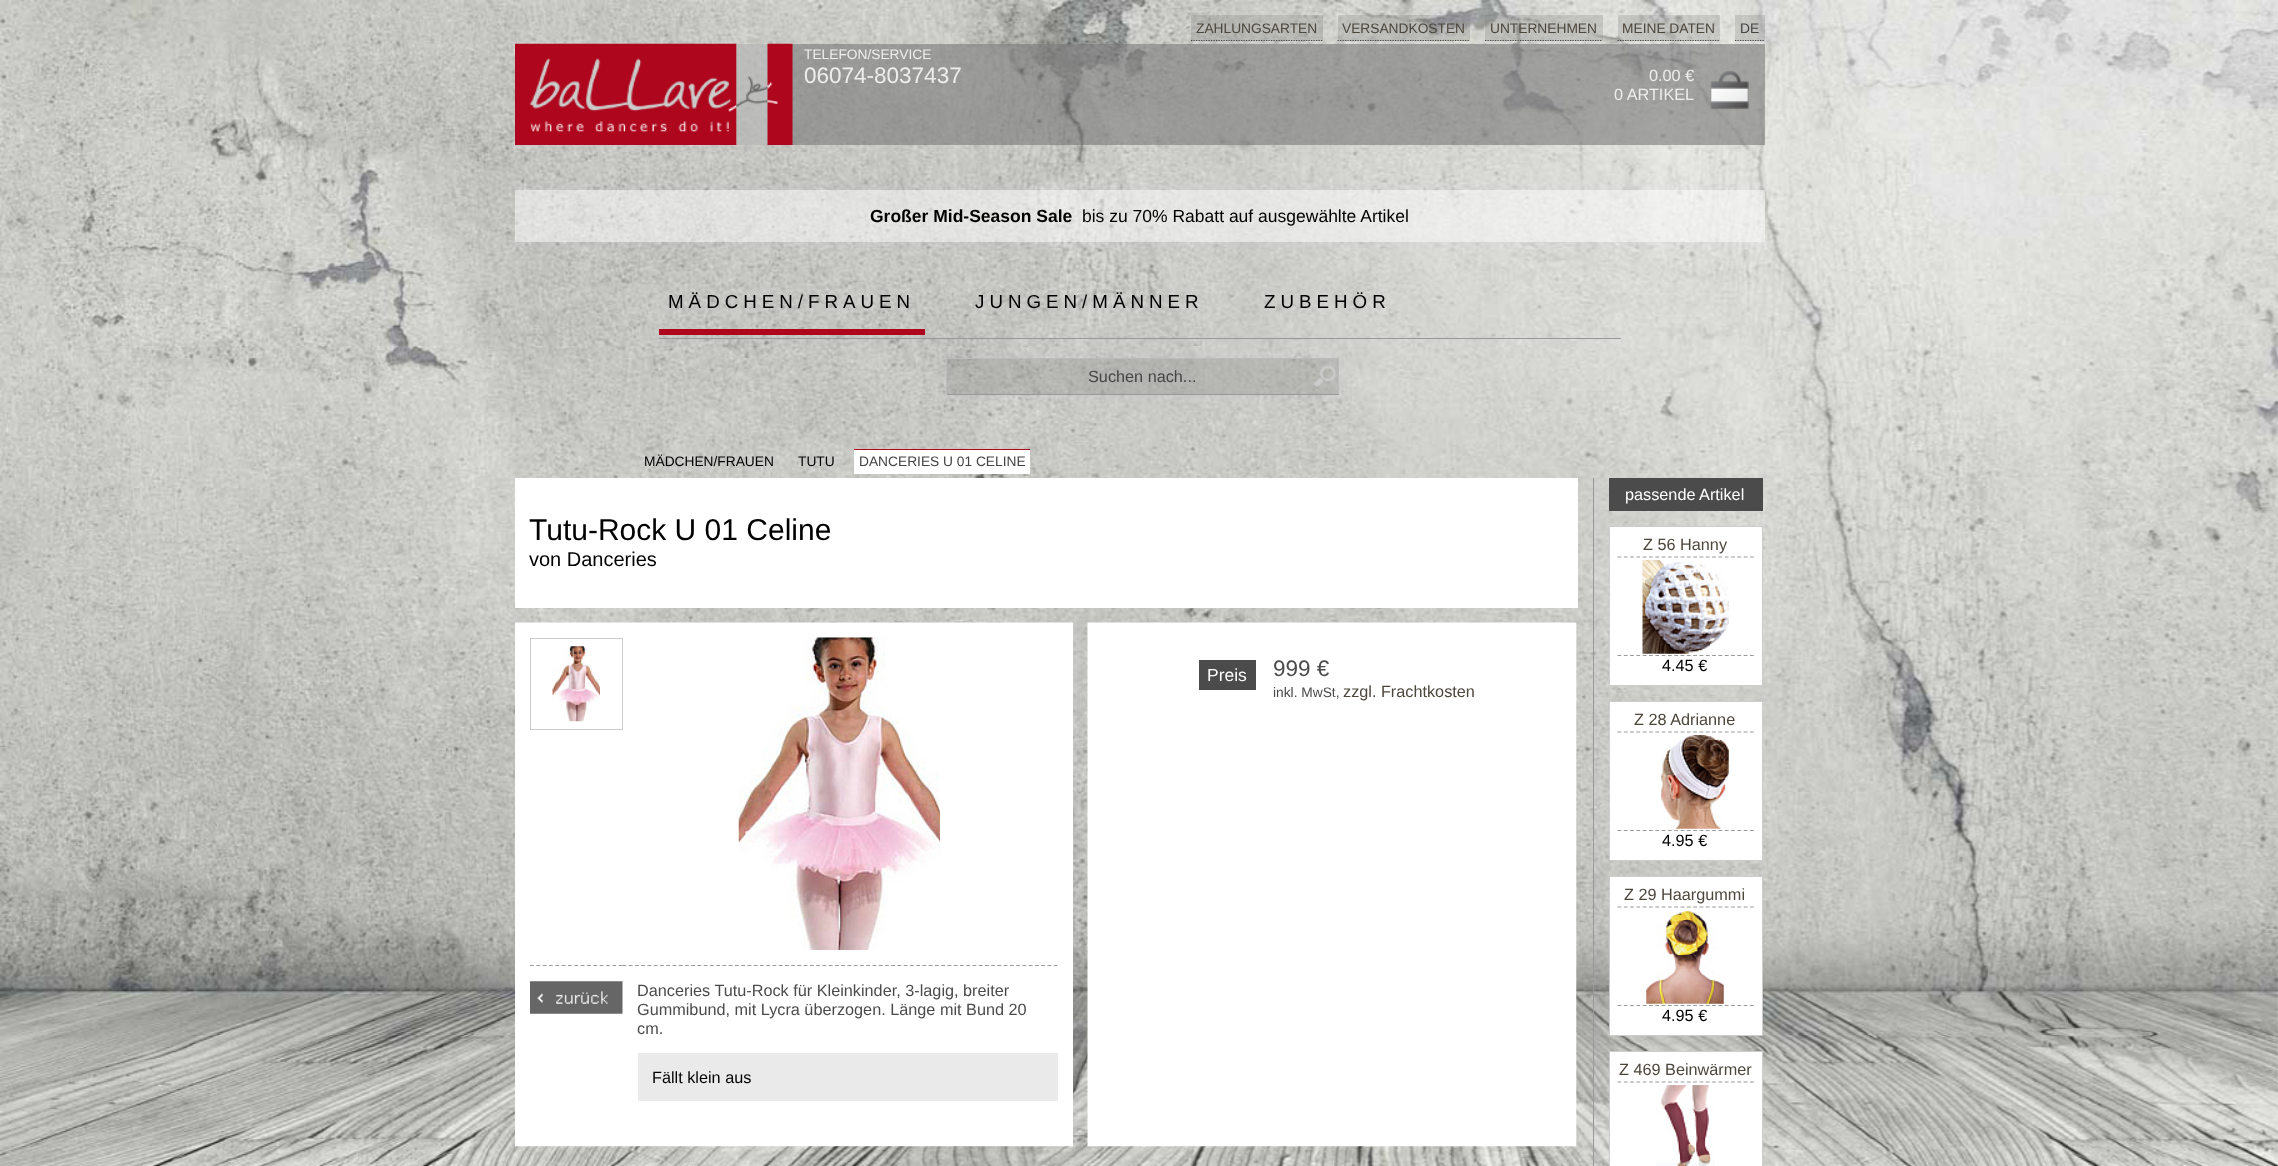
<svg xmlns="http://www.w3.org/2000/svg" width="2278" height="1166">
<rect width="100%" height="100%" fill="#fff"/>
<image x="0" y="0" width="2278" height="1166" href="media/1.png"/>
<rect x="1191" y="15" width="132" height="26" fill="#78787840"/>
<path d="M1191 40.5h131.5" fill="none" stroke="#444" stroke-width="1.2" stroke-dasharray="1.25 1.25"/>
<text x="1196" y="33" style="font-family:Liberation Sans;font-size:13.75px;fill:#4c473d">ZAHLUNGSARTEN</text>
<rect x="1338" y="15" width="132" height="26" fill="#78787840"/>
<path d="M1337.5 40.5h132.5" fill="none" stroke="#444" stroke-width="1.2" stroke-dasharray="1.25 1.25"/>
<text x="1342" y="33" style="font-family:Liberation Sans;font-size:13.75px;fill:#4c473d">VERSANDKOSTEN</text>
<rect x="1485" y="15" width="118" height="26" fill="#78787840"/>
<path d="M1485 40.5h117.5" fill="none" stroke="#444" stroke-width="1.2" stroke-dasharray="1.25 1.25"/>
<text x="1490" y="33" style="font-family:Liberation Sans;font-size:13.75px;fill:#4c473d">UNTERNEHMEN</text>
<rect x="1618" y="15" width="102" height="26" fill="#78787840"/>
<path d="M1617.5 40.5h102.5" fill="none" stroke="#444" stroke-width="1.2" stroke-dasharray="1.25 1.25"/>
<text x="1622" y="33" style="font-family:Liberation Sans;font-size:13.75px;fill:#4c473d">MEINE DATEN</text>
<rect x="1735" y="15" width="30" height="26" fill="#78787840"/>
<path d="M1735 40.5h30" fill="none" stroke="#444" stroke-width="1.2" stroke-dasharray="1.25 1.25"/>
<text x="1740" y="33" style="font-family:Liberation Sans;font-size:13.75px;fill:#444">DE</text>
<rect x="529" y="44" width="1236" height="101" fill="#78787899"/>
<image x="515" y="43" width="278" height="102" href="media/2.png"/>
<text x="804" y="59" style="font-family:Liberation Sans;font-size:13.75px;fill:#eee">TELEFON/SERVICE</text>
<text x="804" y="83" style="font-family:Liberation Sans;font-size:22.5px;fill:#eee">06074-8037437</text>
<text x="1649" y="81" style="font-family:Liberation Sans;font-size:16.25px;fill:#eee">0.00 €</text>
<text x="1614" y="100" style="font-family:Liberation Sans;font-size:16.25px;fill:#eee">0 ARTIKEL</text>
<image x="1710" y="71" width="39" height="39" href="media/3.png"/>
<rect x="515" y="190" width="1250" height="52" fill="#ffffff80"/>
<text x="870" y="222" style="font-family:Liberation Sans;font-size:17.5px;font-weight:bold;fill:#000">Großer Mid-Season Sale</text>
<text x="1082" y="222" style="font-family:Liberation Sans;font-size:17.5px;fill:#000">bis zu 70% Rabatt auf ausgewählte Artikel</text>
<rect x="659" y="338" width="962" height="1" fill="#999"/>
<text x="668" y="308" style="font-family:Liberation Sans;font-size:18.75px;letter-spacing:5px;fill:#000">MÄDCHEN/FRAUEN</text>
<rect x="659" y="329" width="266" height="6" fill="#ae061d"/>
<text x="975" y="308" style="font-family:Liberation Sans;font-size:18.75px;letter-spacing:5px;fill:#000">JUNGEN/MÄNNER</text>
<text x="1264" y="308" style="font-family:Liberation Sans;font-size:18.75px;letter-spacing:5px;fill:#000">ZUBEHÖR</text>
<rect x="947" y="359" width="391" height="35" fill="#78787840"/>
<image x="1313" y="365" width="23" height="23" href="media/4.png"/>
<rect x="946" y="358" width="393" height="1" fill="#bbb"/>
<rect x="1338" y="358" width="1" height="37" fill="#bbb"/>
<rect x="946" y="394" width="393" height="1" fill="#999"/>
<rect x="946" y="358" width="1" height="37" fill="#bbb"/>
<text x="1088" y="382" style="font-family:Liberation Sans;font-size:16.25px;fill:#444">Suchen nach...</text>
<text x="644" y="466" style="font-family:Liberation Sans;font-size:13.75px;fill:#000">MÄDCHEN/FRAUEN</text>
<text x="798" y="466" style="font-family:Liberation Sans;font-size:13.75px;fill:#000">TUTU</text>
<rect x="854" y="450" width="176" height="24" fill="#fff"/>
<rect x="854" y="449" width="176" height="1" fill="#ae061d"/>
<text x="859" y="466" style="font-family:Liberation Sans;font-size:13.75px;fill:#444">DANCERIES U 01 CELINE</text>
<rect x="515" y="478" width="1063" height="130" fill="#fff"/>
<text x="529" y="540" style="font-family:Liberation Sans;font-size:30px;fill:#000">Tutu-Rock U 01 Celine</text>
<text x="529" y="566" style="font-family:Liberation Sans;font-size:20px;fill:#000">von Danceries</text>
<image x="515" y="622" width="1062" height="525" href="media/5.png"/>
<path d="M622.5 965.5h435" fill="none" stroke="#999" stroke-width="1.2" stroke-dasharray="3.75 2.5"/>
<path d="M530 965.5h92.5" fill="none" stroke="#999" stroke-width="1.2" stroke-dasharray="3.75 2.59"/>
<rect x="530.5" y="638.5" width="92" height="91" fill="none" stroke="#ccc"/>
<image x="552" y="646" width="48" height="76" href="media/6.png"/>
<image x="530" y="981" width="93" height="33" href="media/7.png"/>
<rect x="1199" y="660" width="57" height="30" fill="#4b4b4b"/>
<text x="1207" y="681" style="font-family:Liberation Sans;font-size:17.5px;fill:#fff">Preis</text>
<text x="1273" y="676" style="font-family:Liberation Sans;font-size:22.5px;fill:#4b4b4b">999 €</text>
<text x="1273" y="697" style="font-family:Liberation Sans;font-size:13.75px;fill:#4b4b4b">inkl. MwSt,</text>
<text x="1343" y="697" style="font-family:Liberation Sans;font-size:16.25px;fill:#4c473d">zzgl. Frachtkosten</text>
<rect x="1072" y="623" width="1" height="523" fill="#fff"/>
<image x="738" y="637" width="202" height="313" href="media/8.png"/>
<text x="637" y="996" style="font-family:Liberation Sans;font-size:16.25px;fill:#4b4b4b">Danceries Tutu-Rock für Kleinkinder, 3-lagig, breiter</text>
<text x="637" y="1015" style="font-family:Liberation Sans;font-size:16.25px;fill:#4b4b4b">Gummibund, mit Lycra überzogen. Länge mit Bund 20</text>
<text x="637" y="1034" style="font-family:Liberation Sans;font-size:16.25px;fill:#4b4b4b">cm.</text>
<rect x="638" y="1053" width="420" height="48" fill="#eaeaea"/>
<text x="652" y="1083" style="font-family:Liberation Sans;font-size:16.25px;fill:#000">Fällt klein aus</text>
<rect x="1593" y="478" width="1" height="688" fill="#999"/>
<rect x="1609" y="478" width="154" height="33" fill="#4b4b4b"/>
<text x="1625" y="500" style="font-family:Liberation Sans;font-size:16.25px;fill:#fff">passende Artikel</text>
<rect x="1609.5" y="526.5" width="153" height="159" fill="#fff" stroke="#ccc"/>
<text x="1643" y="550" style="font-family:Liberation Sans;font-size:16.25px;fill:#4c473d">Z 56 Hanny</text>
<image x="1642" y="560" width="87" height="94" href="media/9.png"/>
<path d="M1617.5 557h136.5" fill="none" stroke="#999" stroke-width="1.2" stroke-dasharray="3.75 2.56"/>
<path d="M1617.5 655.5h136.5" fill="none" stroke="#999" stroke-width="1.2" stroke-dasharray="3.75 2.56"/>
<text x="1662" y="671" style="font-family:Liberation Sans;font-size:16.25px;fill:#000">4.45 €</text>
<rect x="1609.5" y="701.5" width="153" height="159" fill="#fff" stroke="#ccc"/>
<text x="1634" y="725" style="font-family:Liberation Sans;font-size:16.25px;fill:#4c473d">Z 28 Adrianne</text>
<image x="1660" y="735" width="69" height="94" href="media/10.png"/>
<path d="M1617.5 732h136.5" fill="none" stroke="#999" stroke-width="1.2" stroke-dasharray="3.75 2.56"/>
<path d="M1617.5 830.5h136.5" fill="none" stroke="#999" stroke-width="1.2" stroke-dasharray="3.75 2.56"/>
<text x="1662" y="846" style="font-family:Liberation Sans;font-size:16.25px;fill:#000">4.95 €</text>
<rect x="1609.5" y="876.5" width="153" height="159" fill="#fff" stroke="#ccc"/>
<text x="1624" y="900" style="font-family:Liberation Sans;font-size:16.25px;fill:#4c473d">Z 29 Haargummi</text>
<image x="1646" y="911" width="78" height="93" href="media/11.png"/>
<path d="M1617.5 907h136.5" fill="none" stroke="#999" stroke-width="1.2" stroke-dasharray="3.75 2.56"/>
<path d="M1617.5 1005.5h136.5" fill="none" stroke="#999" stroke-width="1.2" stroke-dasharray="3.75 2.56"/>
<text x="1662" y="1021" style="font-family:Liberation Sans;font-size:16.25px;fill:#000">4.95 €</text>
<rect x="1609.5" y="1051.5" width="153" height="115" fill="#fff" stroke="#ccc"/>
<text x="1619" y="1075" style="font-family:Liberation Sans;font-size:16.25px;fill:#4c473d">Z 469 Beinwärmer</text>
<image x="1656" y="1085" width="59" height="81" href="media/12.png"/>
<path d="M1617.5 1082h136.5" fill="none" stroke="#999" stroke-width="1.2" stroke-dasharray="3.75 2.56"/>
</svg>
